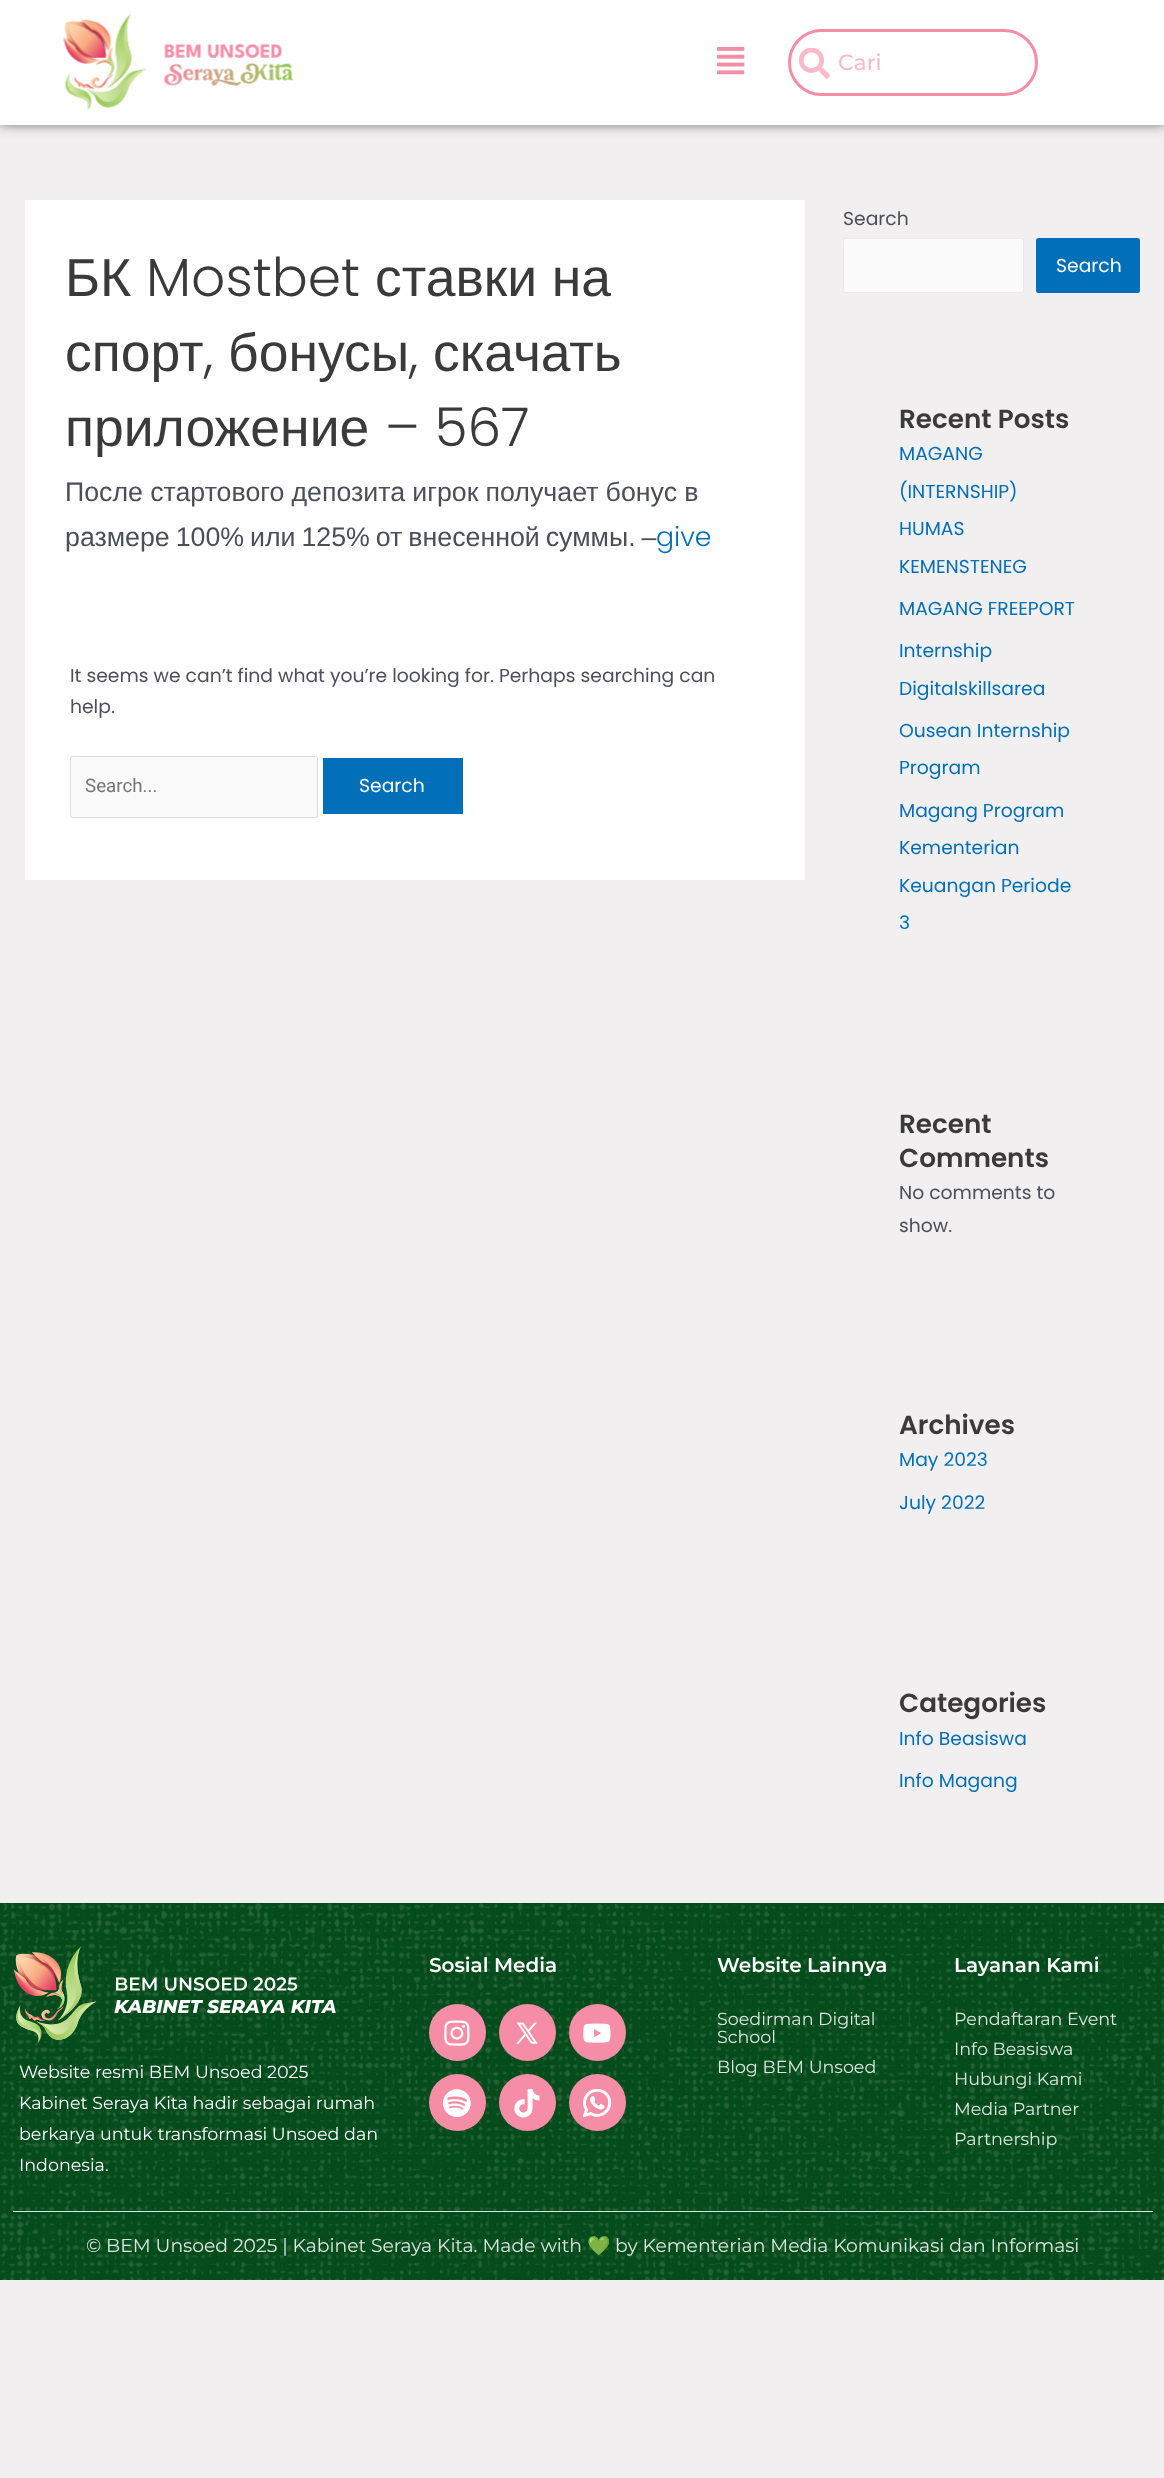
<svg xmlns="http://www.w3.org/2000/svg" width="1164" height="2478">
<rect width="100%" height="100%" fill="#f1efef"/>
<rect width="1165" height="125" fill="#00000080" filter="blur(6px)"/>
<rect width="1164" height="125" fill="#fff"/>
<image x="63" y="13" width="231" height="98" href="media/1.png"/>
<image x="716" y="46" width="29" height="29" href="media/2.png"/>
<rect x="789.5" y="30.5" width="247" height="64" rx="32" fill="none" stroke="#f58da6" stroke-width="3"/>
<image x="799" y="48" width="31" height="31" href="media/3.png"/>
<text x="838" y="70" style="font-family:'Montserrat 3';font-size:22px;font-weight:100;fill:#f9bbca">Cari</text>
<rect x="25" y="200" width="780" height="680" fill="#fff"/>
<text x="65" y="296" style="font-family:Liberation Sans;font-size:53.5px;fill:#3a3a3a">БК</text>
<text x="146" y="296" style="font-family:Poppins;font-size:53.5px;font-weight:300;fill:#3a3a3a">Mostbet</text>
<text x="375" y="296" word-spacing="-0.25" style="font-family:Liberation Sans;font-size:53.5px;fill:#3a3a3a">ставки на</text>
<text x="65" y="371" style="font-family:Liberation Sans;font-size:53.5px;fill:#3a3a3a">спорт</text>
<text x="204" y="371" style="font-family:Poppins;font-size:53.5px;font-weight:300;fill:#3a3a3a">,</text>
<text x="228" y="371" style="font-family:Liberation Sans;font-size:53.5px;fill:#3a3a3a">бонусы</text>
<text x="409" y="371" style="font-family:Poppins;font-size:53.5px;font-weight:300;fill:#3a3a3a">,</text>
<text x="433" y="371" style="font-family:Liberation Sans;font-size:53.5px;fill:#3a3a3a">скачать</text>
<text x="65" y="446" style="font-family:Liberation Sans;font-size:53.5px;fill:#3a3a3a">приложение</text>
<text x="385" y="446" style="font-family:Poppins;font-size:53.5px;font-weight:300;fill:#3a3a3a">– 567</text>
<text x="65" y="501" word-spacing="-0.25" style="font-family:Liberation Sans;font-size:26.75px;fill:#4b4f58">После стартового депозита игрок получает бонус в</text>
<text x="65" y="546" word-spacing="-1.5" style="font-family:Liberation Sans;font-size:26.75px;fill:#4b4f58">размере 100% или 125% от внесенной суммы. –</text>
<text x="656" y="546" style="font-family:Poppins;font-size:26.75px;font-weight:300;fill:#0170b9">give</text>
<text x="70" y="682" style="font-family:Poppins;font-size:18.75px;fill:#4b4f58">It seems we can’t find what you’re looking for. Perhaps searching can</text>
<text x="70" y="713" style="font-family:Poppins;font-size:18.75px;fill:#4b4f58">help.</text>
<rect x="70.5" y="756.5" width="247" height="61" rx="2" fill="#fafafa" stroke="#ddd"/>
<text x="85" y="792" style="font-family:Roboto;font-size:18.75px;fill:#757575">Search...</text>
<rect x="323" y="758" width="140" height="56" fill="#0170b9"/>
<text x="359" y="792" style="font-family:Poppins;font-size:18.75px;fill:#fff">Search</text>
<text x="843" y="225" style="font-family:Poppins;font-size:18.75px;fill:#4b4f58">Search</text>
<rect x="843.5" y="238.5" width="180" height="54" rx="2" fill="#fafafa" stroke="#eaeaea"/>
<rect x="1036" y="238" width="104" height="55" rx="2.5" fill="#0170b9"/>
<text x="1056" y="272" style="font-family:Poppins;font-size:18.75px;fill:#fff">Search</text>
<text x="899" y="428" style="font-family:Poppins;font-size:26.25px;font-weight:600;fill:#3a3a3a">Recent Posts</text>
<text x="899" y="460" style="font-family:Poppins;font-size:18.75px;fill:#0170b9">MAGANG</text>
<text x="899" y="498" style="font-family:Poppins;font-size:18.75px;fill:#0170b9">(INTERNSHIP)</text>
<text x="899" y="535" style="font-family:Poppins;font-size:18.75px;fill:#0170b9">HUMAS</text>
<text x="899" y="573" style="font-family:Poppins;font-size:18.75px;fill:#0170b9">KEMENSTENEG</text>
<text x="899" y="615" style="font-family:Poppins;font-size:18.75px;fill:#0170b9">MAGANG FREEPORT</text>
<text x="899" y="657" style="font-family:Poppins;font-size:18.75px;fill:#0170b9">Internship</text>
<text x="899" y="695" style="font-family:Poppins;font-size:18.75px;fill:#0170b9">Digitalskillsarea</text>
<text x="899" y="737" style="font-family:Poppins;font-size:18.75px;fill:#0170b9">Ousean Internship</text>
<text x="899" y="774" style="font-family:Poppins;font-size:18.75px;fill:#0170b9">Program</text>
<text x="899" y="817" style="font-family:Poppins;font-size:18.75px;fill:#0170b9">Magang Program</text>
<text x="899" y="854" style="font-family:Poppins;font-size:18.75px;fill:#0170b9">Kementerian</text>
<text x="899" y="892" style="font-family:Poppins;font-size:18.75px;fill:#0170b9">Keuangan Periode</text>
<text x="899" y="929" style="font-family:Poppins;font-size:18.75px;fill:#0170b9">3</text>
<text x="899" y="1133" style="font-family:Poppins;font-size:26.25px;font-weight:600;fill:#3a3a3a">Recent</text>
<text x="899" y="1167" style="font-family:Poppins;font-size:26.25px;font-weight:600;fill:#3a3a3a">Comments</text>
<text x="899" y="1199" style="font-family:Poppins;font-size:18.75px;fill:#4b4f58">No comments to</text>
<text x="899" y="1232" style="font-family:Poppins;font-size:18.75px;fill:#4b4f58">show.</text>
<text x="899" y="1434" style="font-family:Poppins;font-size:26.25px;font-weight:600;fill:#3a3a3a">Archives</text>
<text x="899" y="1466" style="font-family:Poppins;font-size:18.75px;fill:#0170b9">May 2023</text>
<text x="899" y="1509" style="font-family:Poppins;font-size:18.75px;fill:#0170b9">July 2022</text>
<text x="899" y="1712" style="font-family:Poppins;font-size:26.25px;font-weight:600;fill:#3a3a3a">Categories</text>
<text x="899" y="1745" style="font-family:Poppins;font-size:18.75px;fill:#0170b9">Info Beasiswa</text>
<text x="899" y="1787" style="font-family:Poppins;font-size:18.75px;fill:#0170b9">Info Magang</text>
<rect y="1903" width="1164" height="377" fill="#054c1d"/>
<image x="0" y="1903" width="1164" height="377" href="media/4.png"/>
<image x="14" y="1946" width="322" height="97" href="media/5.png"/>
<text x="19" y="2078" style="font-family:Montserrat;font-size:17.5px;font-weight:100;fill:#fff">Website resmi BEM Unsoed 2025</text>
<text x="19" y="2109" style="font-family:Montserrat;font-size:17.5px;font-weight:100;fill:#fff">Kabinet Seraya Kita hadir sebagai rumah</text>
<text x="19" y="2140" style="font-family:Montserrat;font-size:17.5px;font-weight:100;fill:#fff">berkarya untuk transformasi Unsoed dan</text>
<text x="19" y="2171" style="font-family:Montserrat;font-size:17.5px;font-weight:100;fill:#fff">Indonesia.</text>
<text x="429" y="1972" style="font-family:'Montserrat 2';font-size:20px;font-weight:100;fill:#fff">Sosial Media</text>
<circle cx="457.5" cy="2032.5" r="28.5" fill="#f58da6"/>
<image x="444" y="2020" width="26" height="26" href="media/6.png"/>
<circle cx="527.5" cy="2032.5" r="28.5" fill="#f58da6"/>
<image x="516" y="2022" width="22" height="22" href="media/7.png"/>
<circle cx="597.5" cy="2032.5" r="28.5" fill="#f58da6"/>
<image x="583" y="2023" width="28" height="20" href="media/8.png"/>
<circle cx="457.5" cy="2102.5" r="28.5" fill="#f58da6"/>
<image x="443" y="2089" width="28" height="28" href="media/9.png"/>
<circle cx="527.5" cy="2102.5" r="28.5" fill="#f58da6"/>
<image x="514" y="2089" width="26" height="29" href="media/10.png"/>
<circle cx="597.5" cy="2102.5" r="28.5" fill="#f58da6"/>
<image x="583" y="2089" width="28" height="29" href="media/11.png"/>
<text x="717" y="1972" style="font-family:'Montserrat 2';font-size:20px;font-weight:100;fill:#fff">Website Lainnya</text>
<text x="717" y="2025" style="font-family:Montserrat;font-size:17.5px;font-weight:100;fill:#dde6e0">Soedirman Digital</text>
<text x="717" y="2043" style="font-family:Montserrat;font-size:17.5px;font-weight:100;fill:#dde6e0">School</text>
<text x="717" y="2073" style="font-family:Montserrat;font-size:17.5px;font-weight:100;fill:#dde6e0">Blog BEM Unsoed</text>
<text x="954" y="1972" style="font-family:'Montserrat 2';font-size:20px;font-weight:100;fill:#fff">Layanan Kami</text>
<text x="954" y="2025" style="font-family:Montserrat;font-size:17.5px;font-weight:100;fill:#dde6e0">Pendaftaran Event</text>
<text x="954" y="2055" style="font-family:Montserrat;font-size:17.5px;font-weight:100;fill:#dde6e0">Info Beasiswa</text>
<text x="954" y="2085" style="font-family:Montserrat;font-size:17.5px;font-weight:100;fill:#dde6e0">Hubungi Kami</text>
<text x="954" y="2115" style="font-family:Montserrat;font-size:17.5px;font-weight:100;fill:#dde6e0">Media Partner</text>
<text x="954" y="2145" style="font-family:Montserrat;font-size:17.5px;font-weight:100;fill:#dde6e0">Partnership</text>
<rect x="13" y="2211" width="1140" height="1" fill="#ffffffdb"/>
<text x="86" y="2252" style="font-family:Montserrat;font-size:18.75px;font-weight:100;fill:#dde6e0">© BEM Unsoed 2025 | Kabinet Seraya Kita. Made with</text>
<text x="587" y="2252" style="font-family:Noto Color Emoji;font-size:18.75px;fill:#dde6e0">💚</text>
<text x="615" y="2252" style="font-family:Montserrat;font-size:18.75px;font-weight:100;fill:#dde6e0">by Kementerian Media Komunikasi dan Informasi</text>
</svg>
